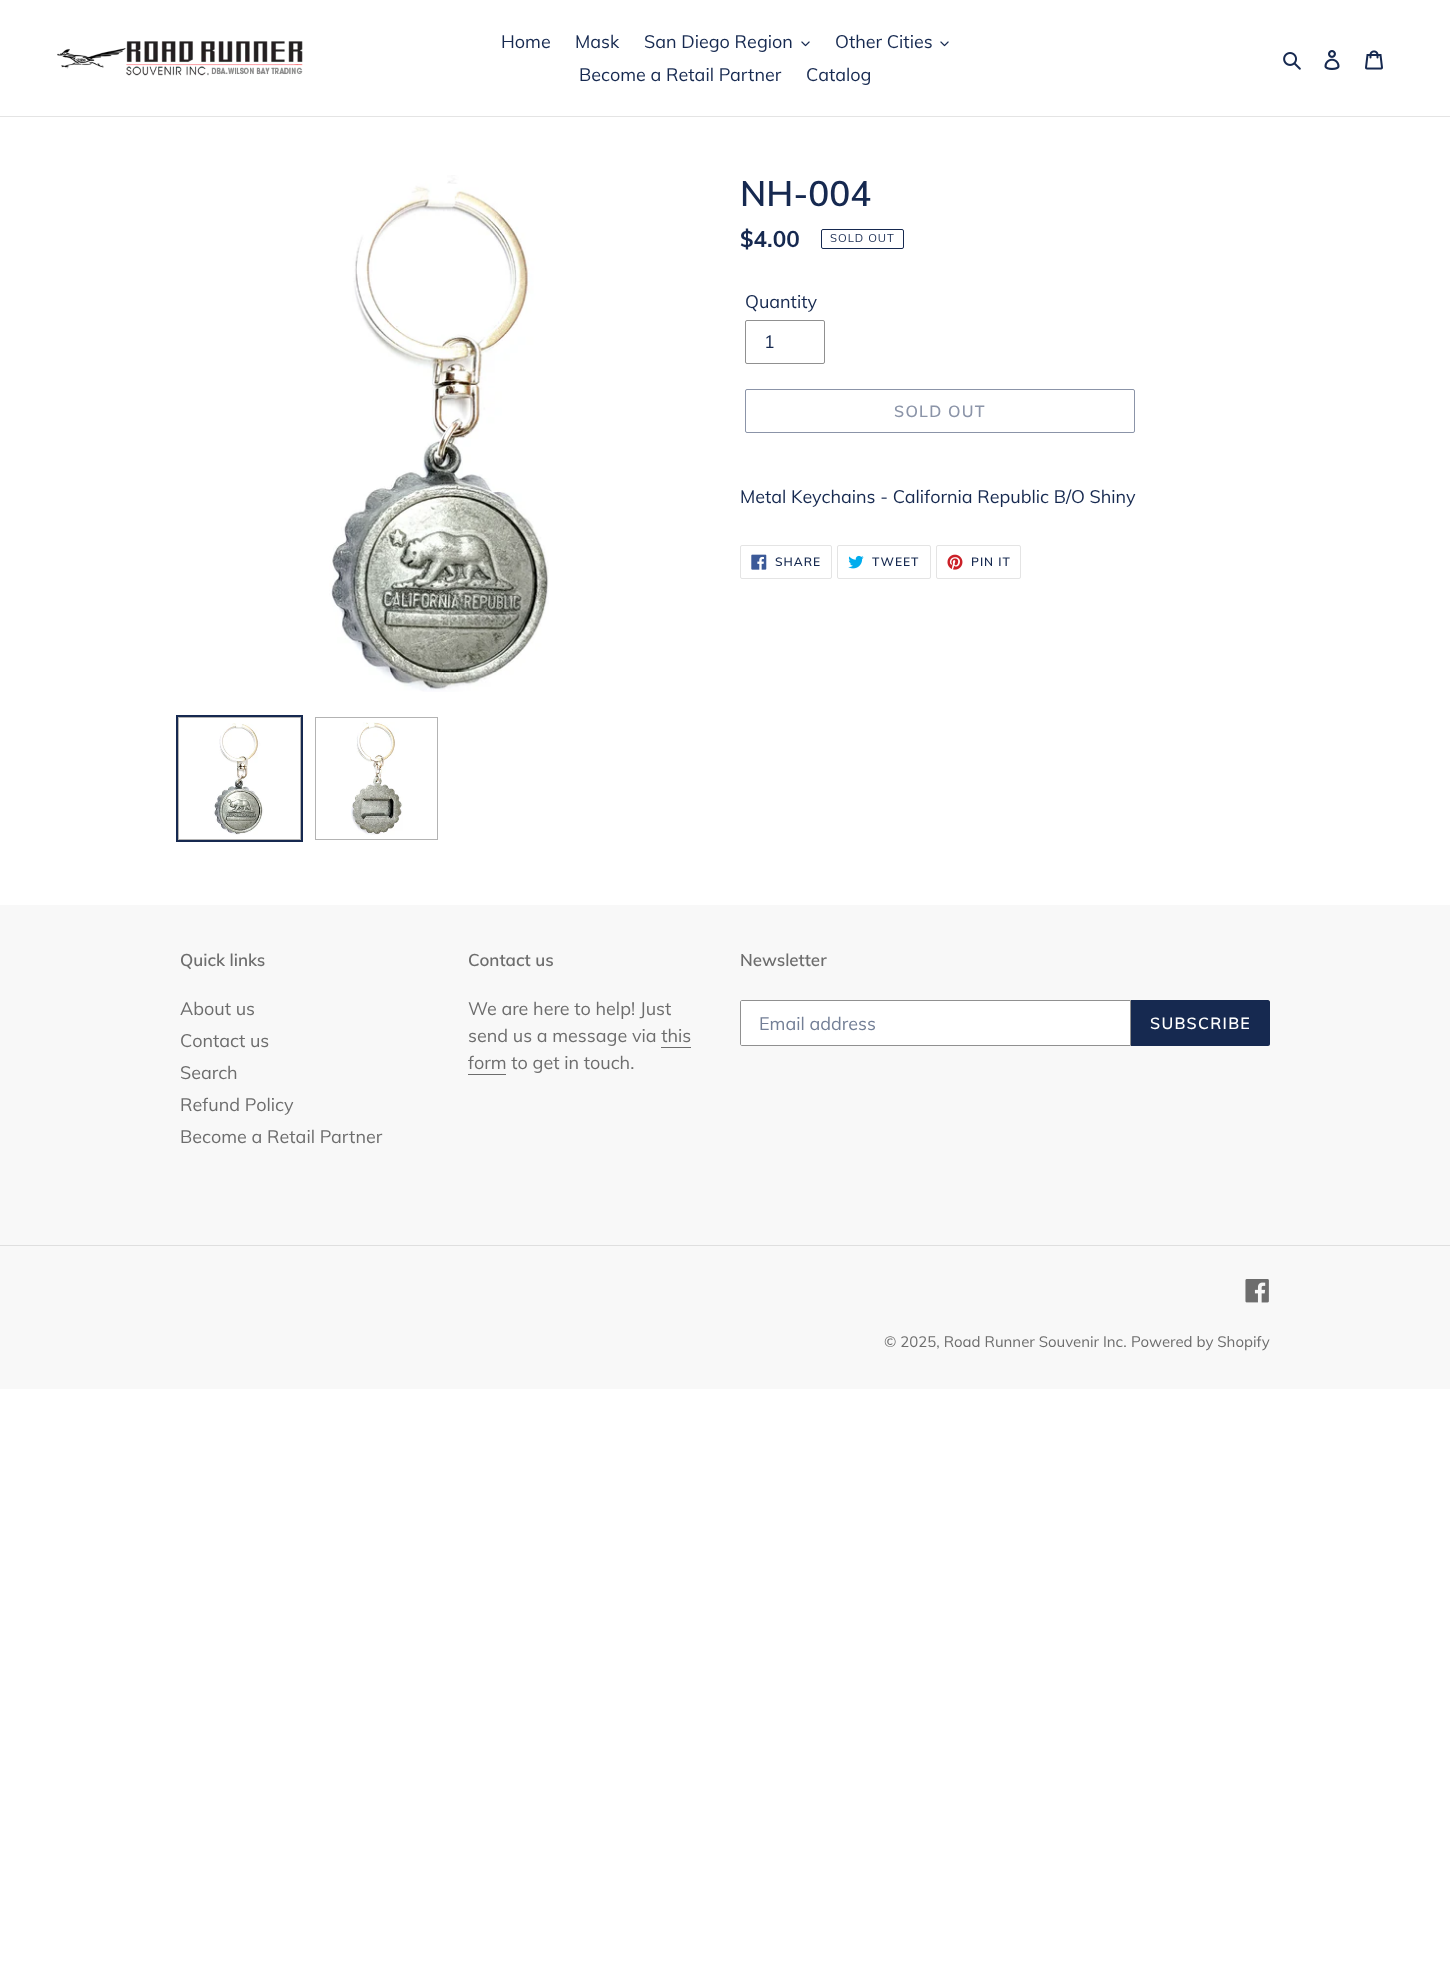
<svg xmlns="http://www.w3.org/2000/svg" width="1450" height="1966">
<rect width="100%" height="100%" fill="#fff"/>
<rect y="116" width="1450" height="1" fill="#e4e4e4"/>
<image x="57" y="41" width="246" height="35" href="media/1.png"/>
<text x="501" y="48" style="font-family:Muli;font-size:18px;fill:#162950">Home</text>
<text x="575" y="48" style="font-family:Muli;font-size:18px;fill:#162950">Mask</text>
<text x="644" y="48" style="font-family:Muli;font-size:18px;fill:#162950">San Diego Region</text>
<image x="801" y="41" width="9" height="6" href="media/2.png"/>
<text x="835" y="48" style="font-family:Muli;font-size:18px;fill:#162950">Other Cities</text>
<image x="940" y="41" width="9" height="6" href="media/2.png"/>
<text x="579" y="81" style="font-family:Muli;font-size:18px;fill:#162950">Become a Retail Partner</text>
<text x="806" y="81" style="font-family:Muli;font-size:18px;fill:#162950">Catalog</text>
<image x="1283" y="52" width="18" height="18" href="media/3.png"/>
<image x="1324" y="50" width="16" height="20" href="media/4.png"/>
<image x="1365" y="50" width="18" height="20" href="media/5.png"/>
<image x="329" y="175" width="220" height="517" href="media/6.png"/>
<rect x="177" y="716" width="125" height="125" fill="none" stroke="#162950" stroke-width="2"/>
<rect x="178.5" y="717.5" width="122" height="122" fill="none" stroke="#b3b3b3"/>
<image x="213" y="723" width="51" height="112" href="media/7.png"/>
<rect x="315.5" y="717.5" width="122" height="122" fill="none" stroke="#b3b3b3"/>
<image x="351" y="722" width="52" height="113" href="media/8.png"/>
<text x="740" y="206" style="font-family:Muli;font-size:35px;font-weight:600;fill:#162950">NH-004</text>
<text x="740" y="247" style="font-family:Muli;font-size:22.5px;font-weight:bold;fill:#162950">$4.00</text>
<rect x="821.5" y="229.5" width="82" height="19" rx="1.5" fill="none" stroke="#162950"/>
<text x="830" y="242" style="font-family:Muli;font-size:11.25px;letter-spacing:1px;fill:#162950">SOLD OUT</text>
<text x="745" y="308" style="font-family:Muli;font-size:18px;fill:#162950">Quantity</text>
<rect x="745.5" y="320.5" width="79" height="43" rx="1.5" fill="none" stroke="#909090"/>
<text x="764" y="348" style="font-family:Muli;font-size:18px;fill:#162950">1</text>
<rect x="745.5" y="389.5" width="389" height="43" rx="1.5" fill="none" stroke="#8b94a8"/>
<text x="894" y="417" style="font-family:Muli;font-size:16px;font-weight:600;letter-spacing:1.25px;fill:#8b94a8">SOLD OUT</text>
<text x="740" y="503" style="font-family:Muli;font-size:18px;fill:#162950">Metal Keychains - California Republic B/O Shiny</text>
<rect x="740.5" y="545.5" width="91" height="33" rx="1.5" fill="none" stroke="#e4e4e4"/>
<image x="751" y="554" width="16" height="16" href="media/9.png"/>
<text x="775" y="566" style="font-family:Muli;font-size:12px;font-weight:600;letter-spacing:1px;fill:#162950">SHARE</text>
<rect x="837.5" y="545.5" width="93" height="33" rx="1.5" fill="none" stroke="#e4e4e4"/>
<image x="848" y="555" width="16" height="14" href="media/10.png"/>
<text x="872" y="566" style="font-family:Muli;font-size:12px;font-weight:600;letter-spacing:1px;fill:#162950">TWEET</text>
<rect x="936.5" y="545.5" width="84" height="33" rx="1.5" fill="none" stroke="#e4e4e4"/>
<image x="947" y="554" width="16" height="16" href="media/11.png"/>
<text x="971" y="566" style="font-family:Muli;font-size:12px;font-weight:600;letter-spacing:1px;fill:#162950">PIN IT</text>
<rect y="905" width="1450" height="484" fill="#f8f8f8"/>
<text x="180" y="966" style="font-family:Muli;font-size:17px;font-weight:600;fill:#6d6d6d">Quick links</text>
<text x="180" y="1015" style="font-family:Muli;font-size:18px;fill:#6d6d6d">About us</text>
<text x="180" y="1047" style="font-family:Muli;font-size:18px;fill:#6d6d6d">Contact us</text>
<text x="180" y="1079" style="font-family:Muli;font-size:18px;fill:#6d6d6d">Search</text>
<text x="180" y="1111" style="font-family:Muli;font-size:18px;fill:#6d6d6d">Refund Policy</text>
<text x="180" y="1143" style="font-family:Muli;font-size:18px;fill:#6d6d6d">Become a Retail Partner</text>
<text x="468" y="966" style="font-family:Muli;font-size:17px;font-weight:600;fill:#6d6d6d">Contact us</text>
<text x="468" y="1015" style="font-family:Muli;font-size:18px;fill:#6d6d6d">We are here to help! Just</text>
<text x="468" y="1042" style="font-family:Muli;font-size:18px;fill:#6d6d6d">send us a message via this</text>
<text x="468" y="1069" style="font-family:Muli;font-size:18px;fill:#6d6d6d">form to get in touch.</text>
<rect x="661" y="1047" width="30" height="1" fill="#6d6d6d"/>
<rect x="468" y="1074" width="38" height="1" fill="#6d6d6d"/>
<text x="740" y="966" style="font-family:Muli;font-size:17px;font-weight:600;fill:#6d6d6d">Newsletter</text>
<path d="M742 1000.5h388.5v45h-388.5c-1 0-1.5-.5-1.5-1.5v-42c0-1 .5-1.5 1.5-1.5z" fill="#fff" stroke="#909090"/>
<text x="759" y="1030" style="font-family:Muli;font-size:18px;fill:#737f96">Email address</text>
<path d="M1131 1000h137c1 0 2 1 2 2v42c0 1-1 2-2 2h-137z" fill="#162950"/>
<text x="1150" y="1029" style="font-family:Muli;font-size:16px;font-weight:600;letter-spacing:1.25px;fill:#fff">SUBSCRIBE</text>
<rect y="1245" width="1450" height="1" fill="#dfdfdf"/>
<image x="1245" y="1279" width="24" height="24" href="media/12.png"/>
<text x="884" y="1347" style="font-family:Muli;font-size:15px;fill:#6d6d6d">© 2025, Road Runner Souvenir Inc.</text>
<text x="1131" y="1347" style="font-family:Muli;font-size:15px;fill:#6d6d6d">Powered by Shopify</text>
</svg>
